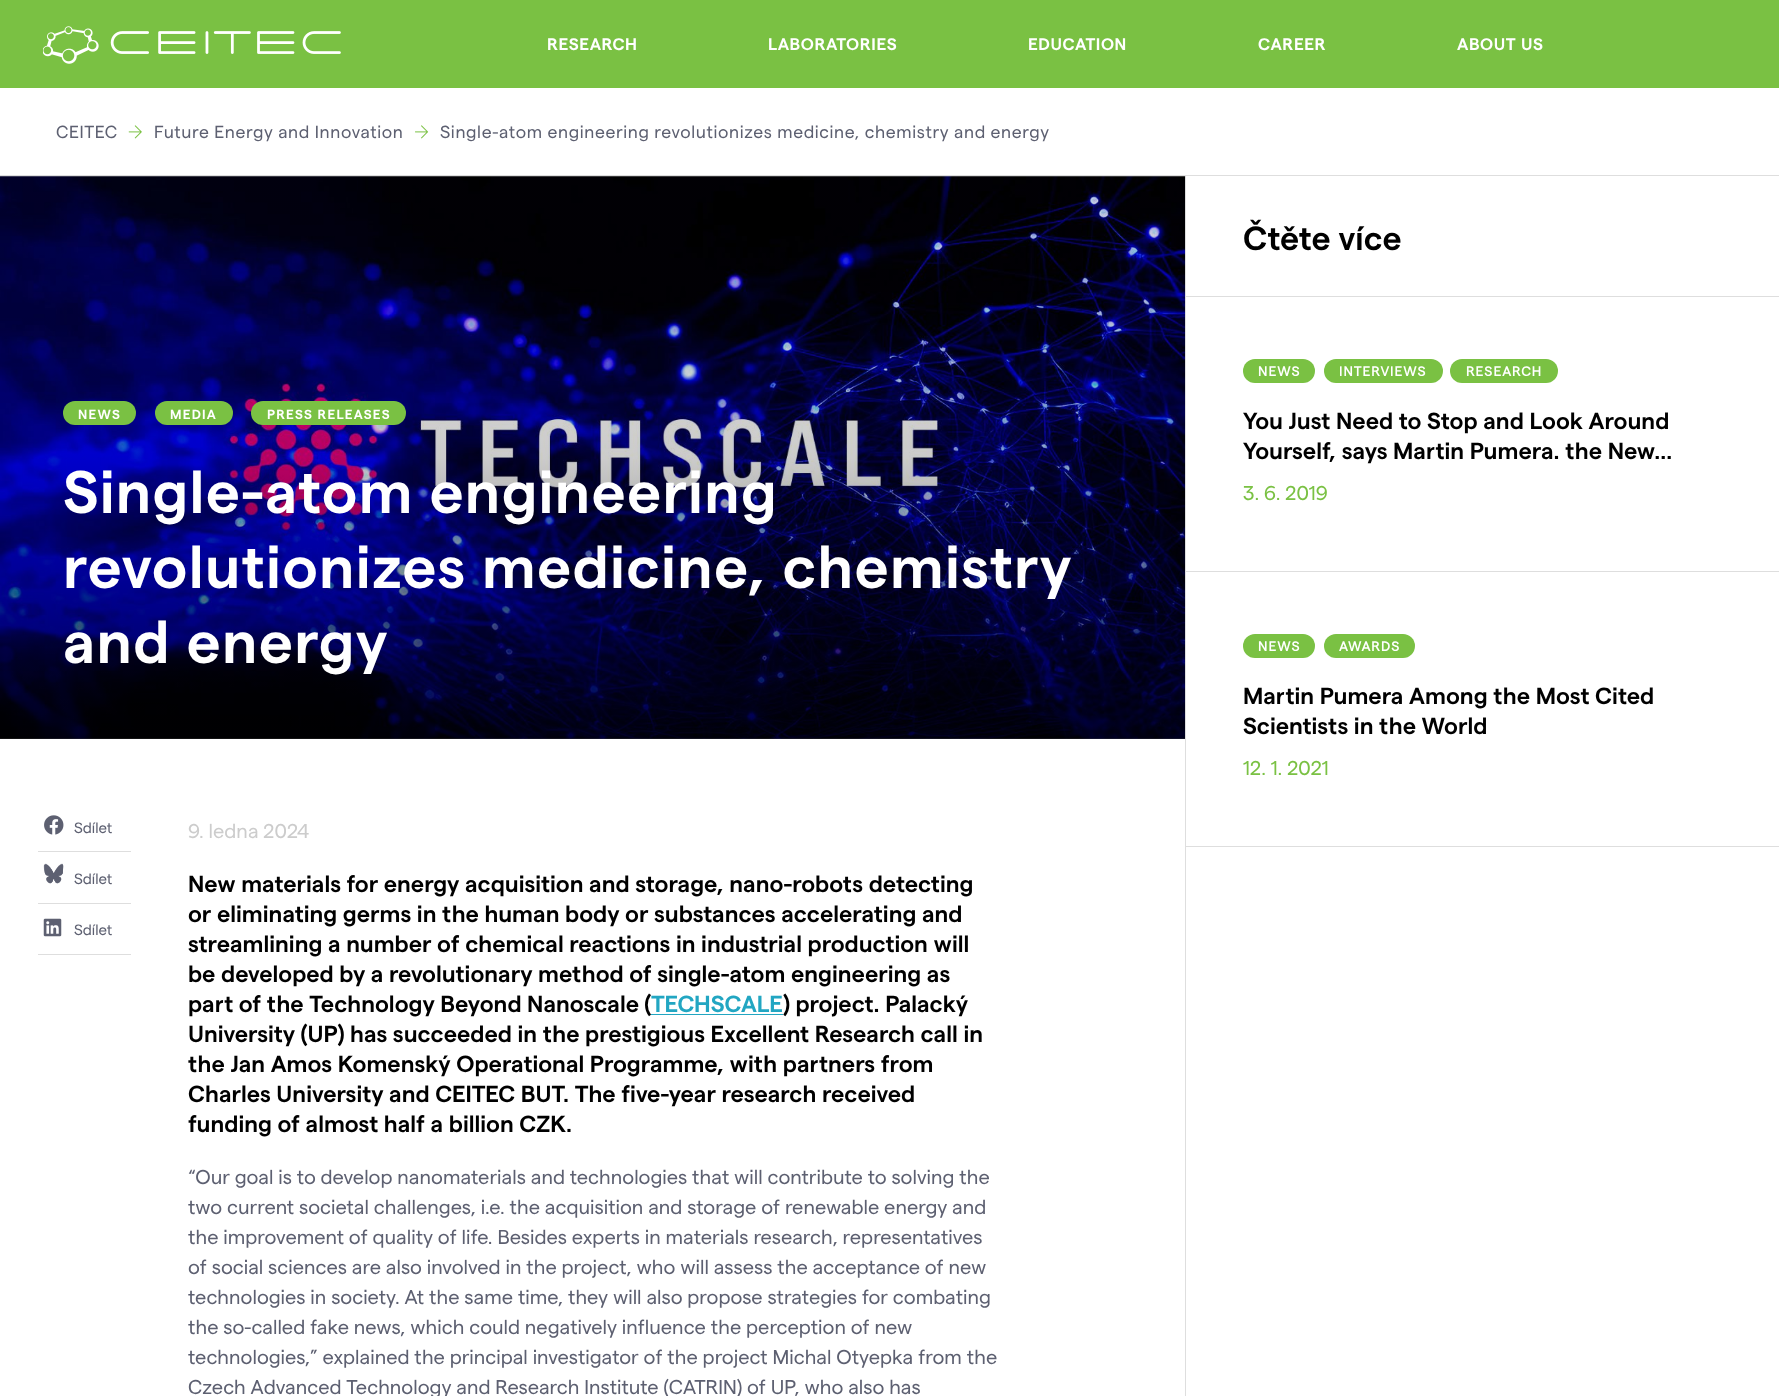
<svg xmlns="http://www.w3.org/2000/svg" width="1779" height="1396">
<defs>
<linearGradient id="g1" gradientUnits="userSpaceOnUse" x1="593" y1="176" x2="593" y2="739"><stop offset="0" stop-color="#000" stop-opacity="0.1"/><stop offset="0.5" stop-color="#000" stop-opacity="0.2"/><stop offset="1" stop-color="#000" stop-opacity="0.7"/></linearGradient>
</defs>
<rect width="100%" height="100%" fill="#fff"/>
<rect width="1779" height="88" fill="#7ac143"/>
<image x="43" y="26" width="298" height="38" href="media/1.png"/>
<text x="547" y="50" style="font-family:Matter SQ;font-size:16.75px;font-weight:600;letter-spacing:0.62px;fill:#fff">RESEARCH</text>
<text x="768" y="50" style="font-family:Matter SQ;font-size:16.75px;font-weight:600;letter-spacing:0.62px;fill:#fff">LABORATORIES</text>
<text x="1028" y="50" style="font-family:Matter SQ;font-size:16.75px;font-weight:600;letter-spacing:0.62px;fill:#fff">EDUCATION</text>
<text x="1258" y="50" style="font-family:Matter SQ;font-size:16.75px;font-weight:600;letter-spacing:0.62px;fill:#fff">CAREER</text>
<text x="1457" y="50" style="font-family:Matter SQ;font-size:16.75px;font-weight:600;letter-spacing:0.62px;fill:#fff">ABOUT US</text>
<rect y="175" width="1779" height="1" fill="#dedede"/>
<text x="56" y="138" style="font-family:Matter SQ;font-size:17.5px;letter-spacing:0.62px;fill:#5d6071">CEITEC</text>
<image x="128" y="125" width="14" height="14" href="media/2.png"/>
<text x="154" y="138" style="font-family:Matter SQ;font-size:17.5px;letter-spacing:0.62px;fill:#5d6071">Future Energy and Innovation</text>
<image x="415" y="125" width="14" height="14" href="media/3.png"/>
<text x="440" y="138" style="font-family:Matter SQ;font-size:17.5px;letter-spacing:0.62px;fill:#5d6071">Single-atom engineering revolutionizes medicine, chemistry and energy</text>
<rect x="1185" y="176" width="1" height="1220" fill="#dedede"/>
<image x="0" y="176" width="1185" height="563" href="media/4.png"/>
<rect y="176" width="1185" height="563" fill="url(#g1)"/>
<rect x="63" y="401" width="73" height="24" rx="12" fill="#7ac143"/>
<text x="78" y="419" style="font-family:Matter SQ;font-size:13.25px;font-weight:600;letter-spacing:1.25px;fill:#fff">NEWS</text>
<rect x="155" y="401" width="78" height="24" rx="12" fill="#7ac143"/>
<text x="170" y="419" style="font-family:Matter SQ;font-size:13.25px;font-weight:600;letter-spacing:1.25px;fill:#fff">MEDIA</text>
<rect x="251" y="401" width="155" height="24" rx="12" fill="#7ac143"/>
<text x="267" y="419" style="font-family:Matter SQ;font-size:13.25px;font-weight:600;letter-spacing:1.25px;fill:#fff">PRESS RELEASES</text>
<text x="63" y="513" style="font-family:Matter SQ;font-size:60px;font-weight:600;letter-spacing:1.25px;fill:#fff">Single-atom engineering</text>
<text x="63" y="588" style="font-family:Matter SQ;font-size:60px;font-weight:600;letter-spacing:1.25px;fill:#fff">revolutionizes medicine, chemistry</text>
<text x="63" y="663" style="font-family:Matter SQ;font-size:60px;font-weight:600;letter-spacing:1.25px;fill:#fff">and energy</text>
<rect x="38" y="851" width="93" height="1" fill="#dedede"/>
<image x="44" y="815" width="20" height="20" href="media/5.png"/>
<text x="74" y="833" style="font-family:Matter SQ;font-size:15px;fill:#5d6071">Sdílet</text>
<rect x="38" y="903" width="93" height="1" fill="#dedede"/>
<image x="43" y="863" width="21" height="21" href="media/6.png"/>
<text x="74" y="884" style="font-family:Matter SQ;font-size:15px;fill:#5d6071">Sdílet</text>
<rect x="38" y="954" width="93" height="1" fill="#dedede"/>
<image x="43" y="918" width="19" height="19" href="media/7.png"/>
<text x="74" y="935" style="font-family:Matter SQ;font-size:15px;fill:#5d6071">Sdílet</text>
<text x="188" y="838" style="font-family:Matter SQ;font-size:20px;fill:#ccc">9. ledna 2024</text>
<text x="188" y="892" style="font-family:Matter SQ;font-size:23.35px;font-weight:600;fill:#000">New materials for energy acquisition and storage, nano-robots detecting</text>
<text x="188" y="922" style="font-family:Matter SQ;font-size:23.35px;font-weight:600;fill:#000">or eliminating germs in the human body or substances accelerating and</text>
<text x="188" y="952" style="font-family:Matter SQ;font-size:23.35px;font-weight:600;fill:#000">streamlining a number of chemical reactions in industrial production will</text>
<text x="188" y="982" style="font-family:Matter SQ;font-size:23.35px;font-weight:600;fill:#000">be developed by a revolutionary method of single-atom engineering as</text>
<text x="188" y="1012" style="font-family:Matter SQ;font-size:23.35px;font-weight:600;fill:#000">part of the Technology Beyond Nanoscale (</text>
<rect x="651" y="1014" width="132" height="1" fill="#22a6c2"/>
<text x="651" y="1012" style="font-family:Matter SQ;font-size:23.35px;font-weight:600;fill:#22a6c2">TECHSCALE</text>
<text x="783" y="1012" style="font-family:Matter SQ;font-size:23.35px;font-weight:600;fill:#000">) project. Palacký</text>
<text x="188" y="1042" style="font-family:Matter SQ;font-size:23.35px;font-weight:600;fill:#000">University (UP) has succeeded in the prestigious Excellent Research call in</text>
<text x="188" y="1072" style="font-family:Matter SQ;font-size:23.35px;font-weight:600;fill:#000">the Jan Amos Komenský Operational Programme, with partners from</text>
<text x="188" y="1102" style="font-family:Matter SQ;font-size:23.35px;font-weight:600;fill:#000">Charles University and CEITEC BUT. The five-year research received</text>
<text x="188" y="1132" style="font-family:Matter SQ;font-size:23.35px;font-weight:600;fill:#000">funding of almost half a billion CZK.</text>
<text x="188" y="1184" style="font-family:Matter SQ;font-size:20px;fill:#5d6071">“Our goal is to develop nanomaterials and technologies that will contribute to solving the</text>
<text x="188" y="1214" style="font-family:Matter SQ;font-size:20px;fill:#5d6071">two current societal challenges, i.e. the acquisition and storage of renewable energy and</text>
<text x="188" y="1244" style="font-family:Matter SQ;font-size:20px;fill:#5d6071">the improvement of quality of life. Besides experts in materials research, representatives</text>
<text x="188" y="1274" style="font-family:Matter SQ;font-size:20px;fill:#5d6071">of social sciences are also involved in the project, who will assess the acceptance of new</text>
<text x="188" y="1304" style="font-family:Matter SQ;font-size:20px;fill:#5d6071">technologies in society. At the same time, they will also propose strategies for combating</text>
<text x="188" y="1334" style="font-family:Matter SQ;font-size:20px;fill:#5d6071">the so-called fake news, which could negatively influence the perception of new</text>
<text x="188" y="1364" style="font-family:Matter SQ;font-size:20px;fill:#5d6071">technologies,” explained the principal investigator of the project Michal Otyepka from the</text>
<text x="188" y="1394" style="font-family:Matter SQ;font-size:20px;fill:#5d6071">Czech Advanced Technology and Research Institute (CATRIN) of UP, who also has</text>
<rect x="1186" y="296" width="593" height="1" fill="#dedede"/>
<text x="1243" y="250" style="font-family:Matter SQ;font-size:33.5px;font-weight:600;fill:#000">Čtěte více</text>
<rect x="1186" y="571" width="593" height="1" fill="#dedede"/>
<rect x="1243" y="359" width="72" height="24" rx="12" fill="#7ac143"/>
<text x="1258" y="376" style="font-family:Matter SQ;font-size:13.25px;font-weight:bold;letter-spacing:1.25px;fill:#fff">NEWS</text>
<rect x="1324" y="359" width="119" height="24" rx="12" fill="#7ac143"/>
<text x="1339" y="376" style="font-family:Matter SQ;font-size:13.25px;font-weight:bold;letter-spacing:1.25px;fill:#fff">INTERVIEWS</text>
<rect x="1450" y="359" width="108" height="24" rx="12" fill="#7ac143"/>
<text x="1466" y="376" style="font-family:Matter SQ;font-size:13.25px;font-weight:bold;letter-spacing:1.25px;fill:#fff">RESEARCH</text>
<text x="1243" y="429" style="font-family:Matter SQ;font-size:23.4px;font-weight:600;fill:#000">You Just Need to Stop and Look Around</text>
<text x="1243" y="459" style="font-family:Matter SQ;font-size:23.4px;font-weight:600;fill:#000">Yourself, says Martin Pumera. the New…</text>
<text x="1243" y="500" style="font-family:Matter SQ;font-size:20px;fill:#7ac143">3. 6. 2019</text>
<rect x="1186" y="846" width="593" height="1" fill="#dedede"/>
<rect x="1243" y="634" width="72" height="24" rx="12" fill="#7ac143"/>
<text x="1258" y="651" style="font-family:Matter SQ;font-size:13.25px;font-weight:bold;letter-spacing:1.25px;fill:#fff">NEWS</text>
<rect x="1324" y="634" width="91" height="24" rx="12" fill="#7ac143"/>
<text x="1339" y="651" style="font-family:Matter SQ;font-size:13.25px;font-weight:bold;letter-spacing:1.25px;fill:#fff">AWARDS</text>
<text x="1243" y="704" style="font-family:Matter SQ;font-size:23.4px;font-weight:600;fill:#000">Martin Pumera Among the Most Cited</text>
<text x="1243" y="734" style="font-family:Matter SQ;font-size:23.4px;font-weight:600;fill:#000">Scientists in the World</text>
<text x="1243" y="775" style="font-family:Matter SQ;font-size:20px;fill:#7ac143">12. 1. 2021</text>
</svg>
